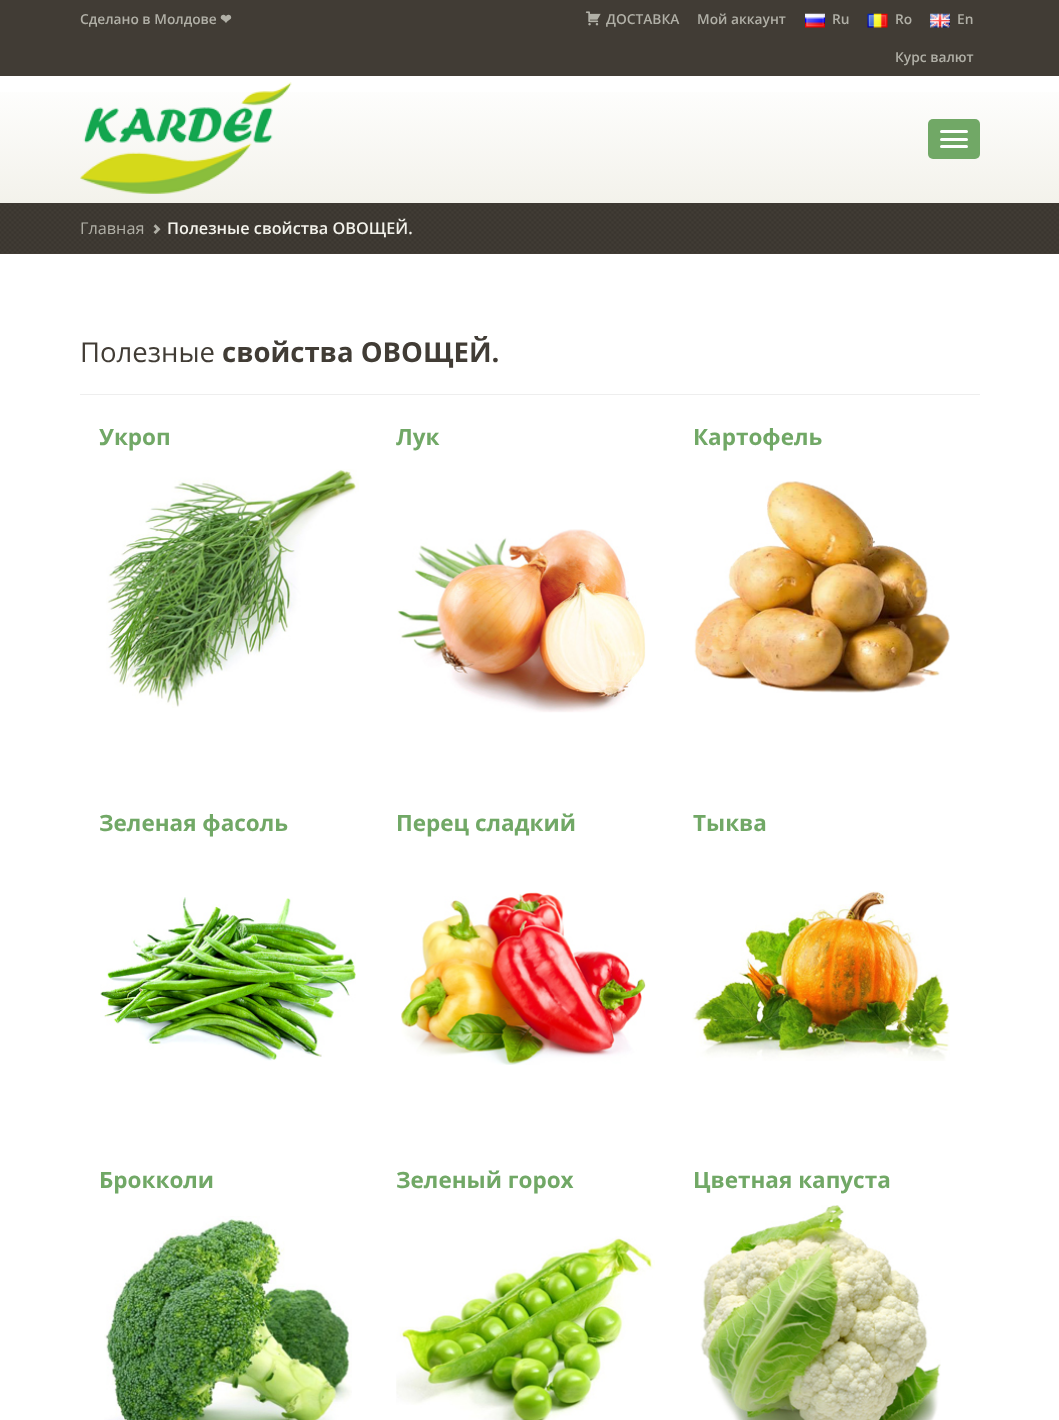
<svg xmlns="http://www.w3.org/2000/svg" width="1059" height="1420">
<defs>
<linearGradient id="g1" gradientUnits="userSpaceOnUse" x1="530" y1="76" x2="530" y2="203"><stop offset="0" stop-color="#fff"/><stop offset="1" stop-color="#f3f2eb"/></linearGradient>
</defs>
<rect width="100%" height="100%" fill="#fff"/>
<rect width="1059" height="76" fill="#413c35"/>
<text x="80" y="24" style="font-family:Open Sans;font-size:13.75px;font-weight:600;fill:#b1b0a7">Сделано в Молдове</text>
<text x="220" y="24" style="font-family:DejaVu Sans;font-size:13.75px;font-weight:bold;fill:#b1b0a7">❤</text>
<image x="585" y="11" width="16" height="15" href="media/1.png"/>
<text x="606" y="24" style="font-family:Open Sans;font-size:13.75px;font-weight:600;fill:#b1b0a7">ДОСТАВКА</text>
<text x="697" y="24" style="font-family:Open Sans;font-size:13.75px;font-weight:600;fill:#b1b0a7">Мой аккаунт</text>
<image x="805" y="13" width="20" height="15" href="media/2.png"/>
<text x="832" y="24" style="font-family:Open Sans;font-size:13.75px;font-weight:600;fill:#b1b0a7">Ru</text>
<image x="867" y="13" width="21" height="15" href="media/3.png"/>
<text x="895" y="24" style="font-family:Open Sans;font-size:13.75px;font-weight:600;fill:#b1b0a7">Ro</text>
<image x="930" y="13" width="20" height="15" href="media/4.png"/>
<text x="957" y="24" style="font-family:Open Sans;font-size:13.75px;font-weight:600;fill:#b1b0a7">En</text>
<text x="895" y="62" style="font-family:Open Sans;font-size:13.75px;font-weight:600;fill:#b1b0a7">Курс валют</text>
<rect y="92" width="1059" height="111" fill="url(#g1)"/>
<image x="80" y="82" width="212" height="112" href="media/5.png"/>
<rect x="928" y="119" width="52" height="40" rx="5" fill="#71a866"/>
<rect x="940" y="130" width="28" height="3" rx="1.5" fill="#fff"/>
<rect x="940" y="138" width="28" height="3" rx="1.5" fill="#fff"/>
<rect x="940" y="145" width="28" height="3" rx="1.5" fill="#fff"/>
<rect y="203" width="1059" height="51" fill="#413c35"/>
<image x="0" y="203" width="1059" height="50" href="media/6.png"/>
<text x="80" y="234" style="font-family:Open Sans;font-size:16.25px;fill:#b1b0a7">Главная</text>
<image x="153" y="224" width="8" height="10" href="media/7.png"/>
<text x="167" y="234" style="font-family:Open Sans;font-size:16.25px;font-weight:600;fill:#f3f2eb">Полезные свойства ОВОЩЕЙ.</text>
<text x="80" y="362" style="font-family:Open Sans;font-size:27.5px;fill:#413c35">Полезные</text>
<text x="222" y="362" style="font-family:Open Sans;font-size:27.5px;font-weight:bold;fill:#413c35">свойства ОВОЩЕЙ.</text>
<rect x="80" y="394" width="900" height="1" fill="#eee"/>
<text x="99" y="445" style="font-family:Open Sans;font-size:22.5px;font-weight:bold;fill:#71a866">Укроп</text>
<image x="106" y="469" width="253" height="239" href="media/8.png"/>
<text x="396" y="445" style="font-family:Open Sans;font-size:22.5px;font-weight:bold;fill:#71a866">Лук</text>
<image x="397" y="529" width="249" height="184" href="media/9.png"/>
<text x="693" y="445" style="font-family:Open Sans;font-size:22.5px;font-weight:bold;fill:#71a866">Картофель</text>
<image x="694" y="481" width="256" height="212" href="media/10.png"/>
<text x="99" y="831" style="font-family:Open Sans;font-size:22.5px;font-weight:bold;fill:#71a866">Зеленая фасоль</text>
<image x="100" y="897" width="256" height="164" href="media/11.png"/>
<text x="396" y="831" style="font-family:Open Sans;font-size:22.5px;font-weight:bold;fill:#71a866">Перец сладкий</text>
<image x="401" y="892" width="245" height="173" href="media/12.png"/>
<text x="693" y="831" style="font-family:Open Sans;font-size:22.5px;font-weight:bold;fill:#71a866">Тыква</text>
<image x="692" y="890" width="258" height="171" href="media/13.png"/>
<text x="99" y="1188" style="font-family:Open Sans;font-size:22.5px;font-weight:bold;fill:#71a866">Брокколи</text>
<image x="104" y="1216" width="248" height="204" href="media/14.png"/>
<text x="396" y="1188" style="font-family:Open Sans;font-size:22.5px;font-weight:bold;fill:#71a866">Зеленый горох</text>
<image x="396" y="1236" width="259" height="184" href="media/15.png"/>
<text x="693" y="1188" style="font-family:Open Sans;font-size:22.5px;font-weight:bold;fill:#71a866">Цветная капуста</text>
<image x="700" y="1205" width="241" height="215" href="media/16.png"/>
</svg>
